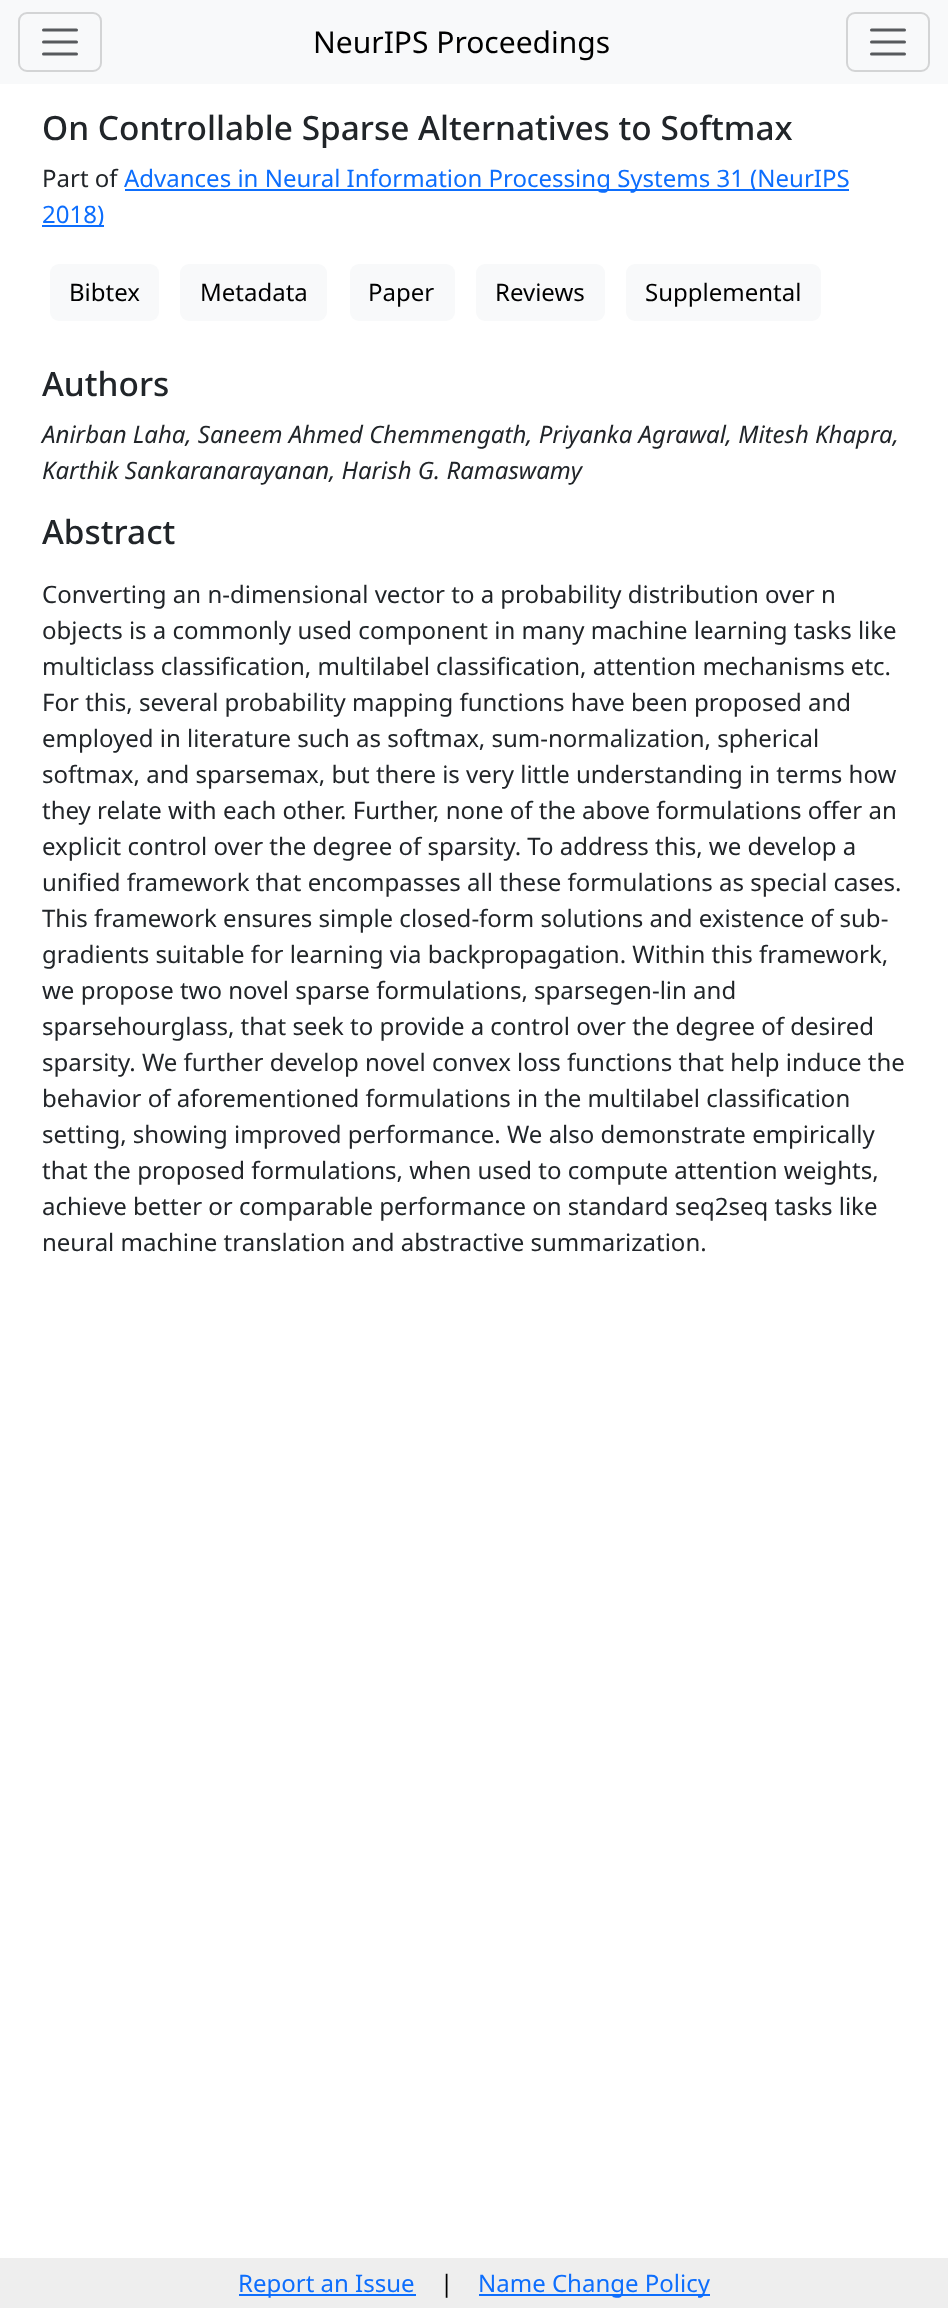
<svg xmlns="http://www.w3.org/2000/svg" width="948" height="2308">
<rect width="100%" height="100%" fill="#fff"/>
<rect width="948" height="84" fill="#f8f9fa"/>
<rect x="19" y="13" width="82" height="58" rx="8" fill="none" stroke="#d3d4d5" stroke-width="2"/>
<path d="M43.5 30h33m-33 12h33m-33 12h33" fill="none" stroke="#575a5d" stroke-width="3" stroke-linecap="round"/>
<text x="313" y="53" style="font-family:Noto Sans;font-size:30px;fill:#000">NeurIPS Proceedings</text>
<rect x="847" y="13" width="82" height="58" rx="8" fill="none" stroke="#d3d4d5" stroke-width="2"/>
<path d="M871.5 30h33m-33 12h33m-33 12h33" fill="none" stroke="#575a5d" stroke-width="3" stroke-linecap="round"/>
<text x="42" y="140" style="font-family:Noto Sans;font-size:33.4px;font-weight:500;fill:#212529">On Controllable Sparse Alternatives to Softmax</text>
<text x="42" y="187" style="font-family:Noto Sans;font-size:24px;fill:#212529">Part of</text>
<rect x="125" y="189" width="724" height="2" fill="#0d6efd"/>
<text x="124" y="187" style="font-family:Noto Sans;font-size:24px;fill:#0d6efd">Advances in Neural Information Processing Systems 31 (NeurIPS</text>
<rect x="42" y="225" width="62" height="2" fill="#0d6efd"/>
<text x="42" y="223" style="font-family:Noto Sans;font-size:24px;fill:#0d6efd">2018)</text>
<rect x="50" y="264" width="109" height="57" rx="9" fill="#f8f9fa"/>
<text x="69" y="301" style="font-family:Noto Sans;font-size:24px;fill:#000">Bibtex</text>
<rect x="180" y="264" width="147" height="57" rx="9" fill="#f8f9fa"/>
<text x="200" y="301" style="font-family:Noto Sans;font-size:24px;fill:#000">Metadata</text>
<rect x="350" y="264" width="105" height="57" rx="9" fill="#f8f9fa"/>
<text x="368" y="301" style="font-family:Noto Sans;font-size:24px;fill:#000">Paper</text>
<rect x="476" y="264" width="129" height="57" rx="9" fill="#f8f9fa"/>
<text x="495" y="301" style="font-family:Noto Sans;font-size:24px;fill:#000">Reviews</text>
<rect x="626" y="264" width="195" height="57" rx="9" fill="#f8f9fa"/>
<text x="645" y="301" style="font-family:Noto Sans;font-size:24px;fill:#000">Supplemental</text>
<text x="42" y="396" style="font-family:Noto Sans;font-size:33.4px;font-weight:500;fill:#212529">Authors</text>
<text x="42" y="443" style="font-family:Noto Sans;font-size:24px;font-style:italic;fill:#212529">Anirban Laha, Saneem Ahmed Chemmengath, Priyanka Agrawal, Mitesh Khapra,</text>
<text x="42" y="479" style="font-family:Noto Sans;font-size:24px;font-style:italic;fill:#212529">Karthik Sankaranarayanan, Harish G. Ramaswamy</text>
<text x="42" y="544" style="font-family:Noto Sans;font-size:33.4px;font-weight:500;fill:#212529">Abstract</text>
<text x="42" y="603" style="font-family:Noto Sans;font-size:24px;fill:#212529">Converting an n-dimensional vector to a probability distribution over n</text>
<text x="42" y="639" style="font-family:Noto Sans;font-size:24px;fill:#212529">objects is a commonly used component in many machine learning tasks like</text>
<text x="42" y="675" style="font-family:Noto Sans;font-size:24px;fill:#212529">multiclass classification, multilabel classification, attention mechanisms etc.</text>
<text x="42" y="711" style="font-family:Noto Sans;font-size:24px;fill:#212529">For this, several probability mapping functions have been proposed and</text>
<text x="42" y="747" style="font-family:Noto Sans;font-size:24px;fill:#212529">employed in literature such as softmax, sum-normalization, spherical</text>
<text x="42" y="783" style="font-family:Noto Sans;font-size:24px;fill:#212529">softmax, and sparsemax, but there is very little understanding in terms how</text>
<text x="42" y="819" style="font-family:Noto Sans;font-size:24px;fill:#212529">they relate with each other. Further, none of the above formulations offer an</text>
<text x="42" y="855" style="font-family:Noto Sans;font-size:24px;fill:#212529">explicit control over the degree of sparsity. To address this, we develop a</text>
<text x="42" y="891" style="font-family:Noto Sans;font-size:24px;fill:#212529">unified framework that encompasses all these formulations as special cases.</text>
<text x="42" y="927" style="font-family:Noto Sans;font-size:24px;fill:#212529">This framework ensures simple closed-form solutions and existence of sub-</text>
<text x="42" y="963" style="font-family:Noto Sans;font-size:24px;fill:#212529">gradients suitable for learning via backpropagation. Within this framework,</text>
<text x="42" y="999" style="font-family:Noto Sans;font-size:24px;fill:#212529">we propose two novel sparse formulations, sparsegen-lin and</text>
<text x="42" y="1035" style="font-family:Noto Sans;font-size:24px;fill:#212529">sparsehourglass, that seek to provide a control over the degree of desired</text>
<text x="42" y="1071" style="font-family:Noto Sans;font-size:24px;fill:#212529">sparsity. We further develop novel convex loss functions that help induce the</text>
<text x="42" y="1107" style="font-family:Noto Sans;font-size:24px;fill:#212529">behavior of aforementioned formulations in the multilabel classification</text>
<text x="42" y="1143" style="font-family:Noto Sans;font-size:24px;fill:#212529">setting, showing improved performance. We also demonstrate empirically</text>
<text x="42" y="1179" style="font-family:Noto Sans;font-size:24px;fill:#212529">that the proposed formulations, when used to compute attention weights,</text>
<text x="42" y="1215" style="font-family:Noto Sans;font-size:24px;fill:#212529">achieve better or comparable performance on standard seq2seq tasks like</text>
<text x="42" y="1251" style="font-family:Noto Sans;font-size:24px;fill:#212529">neural machine translation and abstractive summarization.</text>
<rect y="2258" width="948" height="50" fill="#eee"/>
<rect x="239" y="2294" width="177" height="2" fill="#0d6efd"/>
<text x="238" y="2292" style="font-family:Noto Sans;font-size:24px;fill:#0d6efd">Report an Issue</text>
<text x="440" y="2292" style="font-family:Noto Sans;font-size:24px;fill:#000">|</text>
<rect x="479" y="2294" width="231" height="2" fill="#0d6efd"/>
<text x="478" y="2292" style="font-family:Noto Sans;font-size:24px;fill:#0d6efd">Name Change Policy</text>
</svg>
